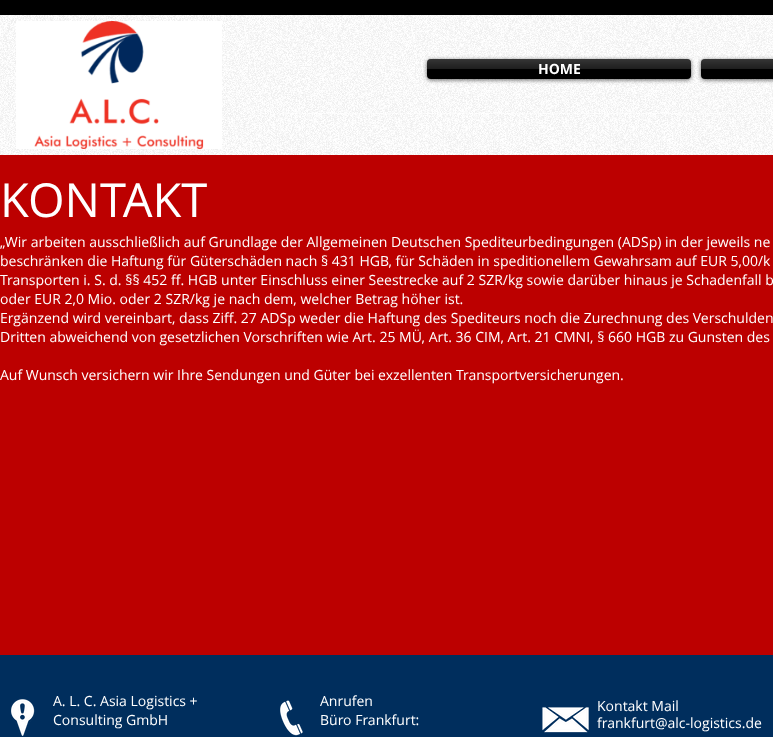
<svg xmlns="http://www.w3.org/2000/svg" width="773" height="737">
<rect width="100%" height="100%" fill="#bc0000"/>
<rect y="15" width="773" height="140" fill="#fff"/>
<image x="0" y="15" width="773" height="140" href="media/1.png"/>
<rect width="773" height="15" fill="#000"/>
<image x="16" y="21" width="206" height="128" href="media/2.png"/>
<rect x="427" y="60" width="264" height="20" rx="4" fill="#00000099" filter="blur(2px)"/>
<rect x="427" y="59" width="264" height="20" rx="4" fill="#000"/>
<image x="427" y="59" width="264" height="10" href="media/3.png"/>
<text x="538" y="74" style="font-family:Open Sans;font-size:14px;font-weight:bold;fill:#fff">HOME</text>
<rect x="701" y="60" width="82" height="20" rx="4" fill="#00000099" filter="blur(2px)"/>
<rect x="701" y="59" width="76" height="20" rx="4" fill="#000"/>
<image x="701" y="59" width="72" height="10" href="media/4.png"/>
<rect x="280" y="113" width="493" height="1" fill="#ffffff80"/>
<text x="0" y="217" style="font-family:Open Sans;font-size:47px;fill:#fff">KONTAKT</text>
<text x="0" y="247" style="font-family:Open Sans;font-size:14px;fill:#fff">„Wir arbeiten ausschließlich auf Grundlage der Allgemeinen Deutschen Spediteurbedingungen (ADSp) in der jeweils ne</text>
<text x="0" y="266" style="font-family:Open Sans;font-size:14px;fill:#fff">beschränken die Haftung für Güterschäden nach § 431 HGB, für Schäden in speditionellem Gewahrsam auf EUR 5,00/k</text>
<text x="0" y="285" style="font-family:Open Sans;font-size:14px;fill:#fff">Transporten i. S. d. §§ 452 ff. HGB unter Einschluss einer Seestrecke auf 2 SZR/kg sowie darüber hinaus je Schadenfall b</text>
<text x="0" y="304" style="font-family:Open Sans;font-size:14px;fill:#fff">oder EUR 2,0 Mio. oder 2 SZR/kg je nach dem, welcher Betrag höher ist.</text>
<text x="0" y="323" style="font-family:Open Sans;font-size:14px;fill:#fff">Ergänzend wird vereinbart, dass Ziff. 27 ADSp weder die Haftung des Spediteurs noch die Zurechnung des Verschulden</text>
<text x="0" y="342" style="font-family:Open Sans;font-size:14px;fill:#fff">Dritten abweichend von gesetzlichen Vorschriften wie Art. 25 MÜ, Art. 36 CIM, Art. 21 CMNI, § 660 HGB zu Gunsten des</text>
<text x="0" y="380" style="font-family:Open Sans;font-size:14px;fill:#fff">Auf Wunsch versichern wir Ihre Sendungen und Güter bei exzellenten Transportversicherungen.</text>
<rect y="655" width="773" height="82" fill="#002e5d"/>
<image x="11" y="699" width="24" height="37" href="media/5.png"/>
<text x="53" y="706" style="font-family:Open Sans;font-size:14px;fill:#fff">A. L. C. Asia Logistics +</text>
<text x="53" y="725" style="font-family:Open Sans;font-size:14px;fill:#fff">Consulting GmbH</text>
<image x="280" y="700" width="23" height="36" href="media/6.png"/>
<text x="320" y="706" style="font-family:Open Sans;font-size:14px;fill:#fff">Anrufen</text>
<text x="320" y="725" style="font-family:Open Sans;font-size:14px;fill:#fff">Büro Frankfurt:</text>
<image x="542" y="707" width="47" height="26" href="media/7.png"/>
<text x="597" y="711" style="font-family:Open Sans;font-size:14px;fill:#fff">Kontakt Mail</text>
<text x="597" y="728" style="font-family:Open Sans;font-size:14px;fill:#fff">frankfurt@alc-logistics.de</text>
</svg>
